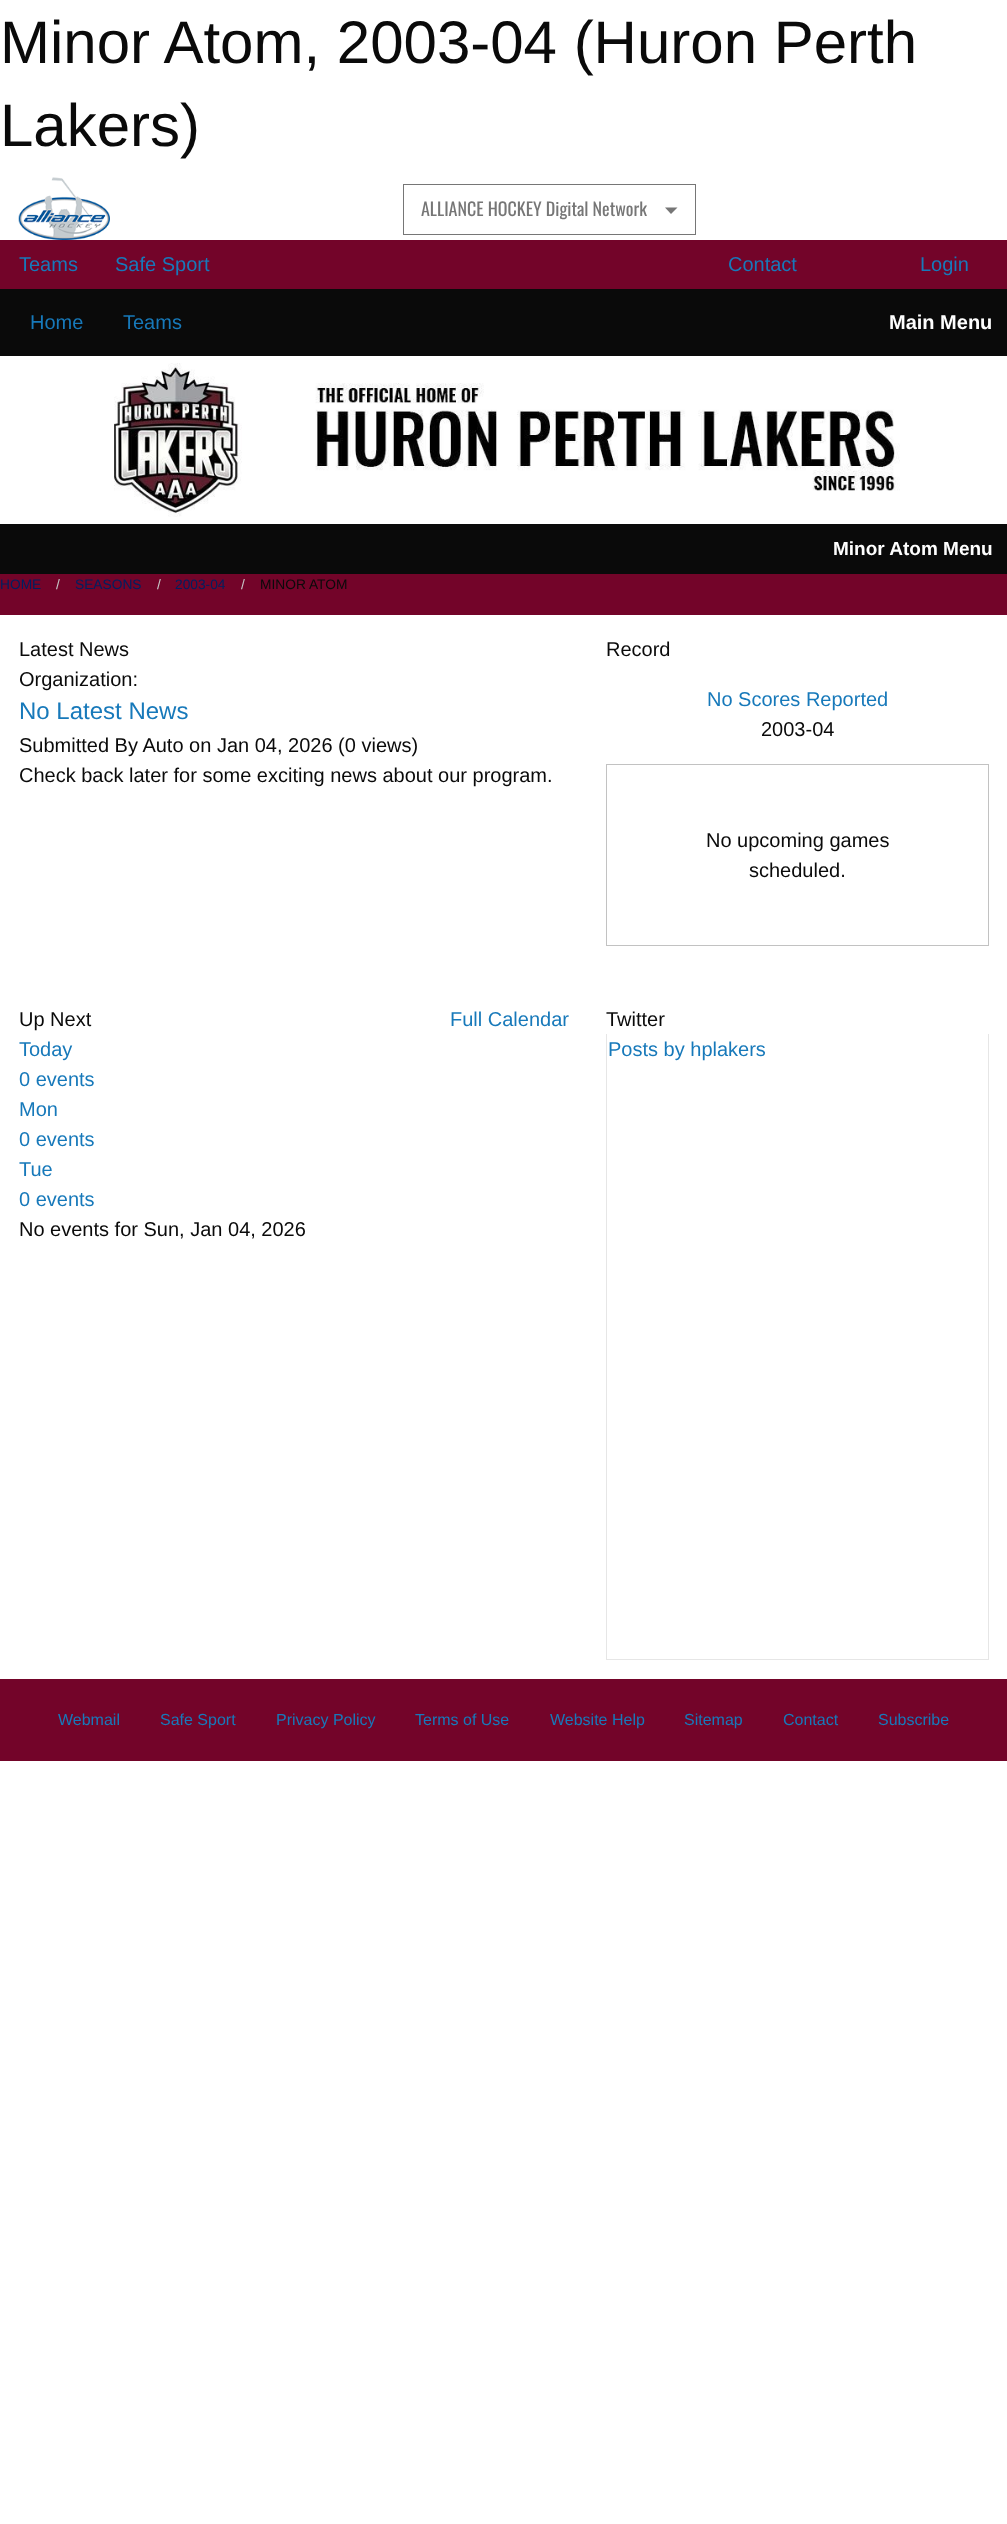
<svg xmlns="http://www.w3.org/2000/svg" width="1007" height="2524">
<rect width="100%" height="100%" fill="#fff"/>
<text x="0" y="63" style="font-family:Liberation Sans;font-size:60px;fill:#0a0a0a">Minor Atom, 2003-04 (Huron Perth</text>
<text x="0" y="146" style="font-family:Liberation Sans;font-size:60px;fill:#0a0a0a">Lakers)</text>
<image x="18" y="177" width="92" height="63" href="media/1.png"/>
<rect x="403.5" y="184.5" width="292" height="50" fill="none" stroke="#767676"/>
<text x="421" y="216" style="font-family:Oswald;font-size:18px;fill:#767676">ALLIANCE HOCKEY Digital Network</text>
<path d="M665 207.5h12.5l-6.5 6.5z" fill="#767676"/>
<rect y="240" width="1007" height="1521" fill="#730429"/>
<text x="19" y="271" style="font-family:Liberation Sans;font-size:20px;fill:#1779ba">Teams</text>
<text x="115" y="271" style="font-family:Liberation Sans;font-size:20px;fill:#1779ba">Safe Sport</text>
<text x="728" y="271" style="font-family:Liberation Sans;font-size:20px;fill:#1779ba">Contact</text>
<text x="920" y="271" style="font-family:Liberation Sans;font-size:20px;fill:#1779ba">Login</text>
<rect y="289" width="1007" height="67" fill="#0a0a0a"/>
<text x="30" y="329" style="font-family:Liberation Sans;font-size:20px;fill:#1779ba">Home</text>
<text x="123" y="329" style="font-family:Liberation Sans;font-size:20px;fill:#1779ba">Teams</text>
<text x="889" y="329" style="font-family:Liberation Sans;font-size:20px;font-weight:bold;fill:#fefefe">Main Menu</text>
<rect y="356" width="1007" height="168" fill="#fff"/>
<image x="114" y="363" width="786" height="154" href="media/2.png"/>
<rect y="524" width="1007" height="50" fill="#0a0a0a"/>
<text x="833" y="555" style="font-family:Liberation Sans;font-size:19px;font-weight:bold;fill:#fefefe">Minor Atom Menu</text>
<text x="0" y="589" style="font-family:Liberation Sans;font-size:13.75px;fill:#002060">HOME</text>
<text x="56" y="589" style="font-family:Liberation Sans;font-size:13.75px;fill:#cacaca">/</text>
<text x="75" y="589" style="font-family:Liberation Sans;font-size:13.75px;fill:#002060">SEASONS</text>
<text x="157" y="589" style="font-family:Liberation Sans;font-size:13.75px;fill:#cacaca">/</text>
<text x="175" y="589" style="font-family:Liberation Sans;font-size:13.75px;fill:#002060">2003-04</text>
<text x="241" y="589" style="font-family:Liberation Sans;font-size:13.75px;fill:#cacaca">/</text>
<text x="260" y="589" style="font-family:Liberation Sans;font-size:13.75px;fill:#0a0a0a">MINOR ATOM</text>
<rect y="615" width="1007" height="1064" fill="#fff"/>
<text x="19" y="656" style="font-family:Liberation Sans;font-size:20px;fill:#0a0a0a">Latest News</text>
<text x="19" y="686" style="font-family:Liberation Sans;font-size:20px;fill:#0a0a0a">Organization:</text>
<text x="19" y="719" style="font-family:Liberation Sans;font-size:24px;fill:#1779ba">No Latest News</text>
<text x="19" y="752" style="font-family:Liberation Sans;font-size:20px;fill:#0a0a0a">Submitted By Auto on Jan 04, 2026 (0 views)</text>
<text x="19" y="782" style="font-family:Liberation Sans;font-size:20px;fill:#0a0a0a">Check back later for some exciting news about our program.</text>
<text x="606" y="656" style="font-family:Liberation Sans;font-size:20px;fill:#0a0a0a">Record</text>
<text x="707" y="706" style="font-family:Liberation Sans;font-size:20px;fill:#1779ba">No Scores Reported</text>
<text x="761" y="736" style="font-family:Liberation Sans;font-size:20px;fill:#0a0a0a">2003-04</text>
<rect x="606.5" y="764.5" width="382" height="181" fill="none" stroke="#c2c2c2"/>
<text x="706" y="847" style="font-family:Liberation Sans;font-size:20px;fill:#0a0a0a">No upcoming games</text>
<text x="749" y="877" style="font-family:Liberation Sans;font-size:20px;fill:#0a0a0a">scheduled.</text>
<text x="19" y="1026" style="font-family:Liberation Sans;font-size:20px;fill:#0a0a0a">Up Next</text>
<text x="450" y="1026" style="font-family:Liberation Sans;font-size:20px;fill:#1779ba">Full Calendar</text>
<text x="19" y="1056" style="font-family:Liberation Sans;font-size:20px;fill:#1779ba">Today</text>
<text x="19" y="1086" style="font-family:Liberation Sans;font-size:20px;fill:#1779ba">0 events</text>
<text x="19" y="1116" style="font-family:Liberation Sans;font-size:20px;fill:#1779ba">Mon</text>
<text x="19" y="1146" style="font-family:Liberation Sans;font-size:20px;fill:#1779ba">0 events</text>
<text x="19" y="1176" style="font-family:Liberation Sans;font-size:20px;fill:#1779ba">Tue</text>
<text x="19" y="1206" style="font-family:Liberation Sans;font-size:20px;fill:#1779ba">0 events</text>
<text x="19" y="1236" style="font-family:Liberation Sans;font-size:20px;fill:#0a0a0a">No events for Sun, Jan 04, 2026</text>
<text x="606" y="1026" style="font-family:Liberation Sans;font-size:20px;fill:#0a0a0a">Twitter</text>
<rect x="988" y="1034" width="1" height="626" fill="#e6e6e6"/>
<rect x="606" y="1659" width="383" height="1" fill="#e6e6e6"/>
<rect x="606" y="1034" width="1" height="626" fill="#e6e6e6"/>
<text x="608" y="1056" style="font-family:Liberation Sans;font-size:20px;fill:#1779ba">Posts by hplakers</text>
<text x="58" y="1725" style="font-family:Liberation Sans;font-size:16px;fill:#1779ba">Webmail</text>
<text x="160" y="1725" style="font-family:Liberation Sans;font-size:16px;fill:#1779ba">Safe Sport</text>
<text x="276" y="1725" style="font-family:Liberation Sans;font-size:16px;fill:#1779ba">Privacy Policy</text>
<text x="415" y="1725" style="font-family:Liberation Sans;font-size:16px;fill:#1779ba">Terms of Use</text>
<text x="550" y="1725" style="font-family:Liberation Sans;font-size:16px;fill:#1779ba">Website Help</text>
<text x="684" y="1725" style="font-family:Liberation Sans;font-size:16px;fill:#1779ba">Sitemap</text>
<text x="783" y="1725" style="font-family:Liberation Sans;font-size:16px;fill:#1779ba">Contact</text>
<text x="878" y="1725" style="font-family:Liberation Sans;font-size:16px;fill:#1779ba">Subscribe</text>
</svg>
